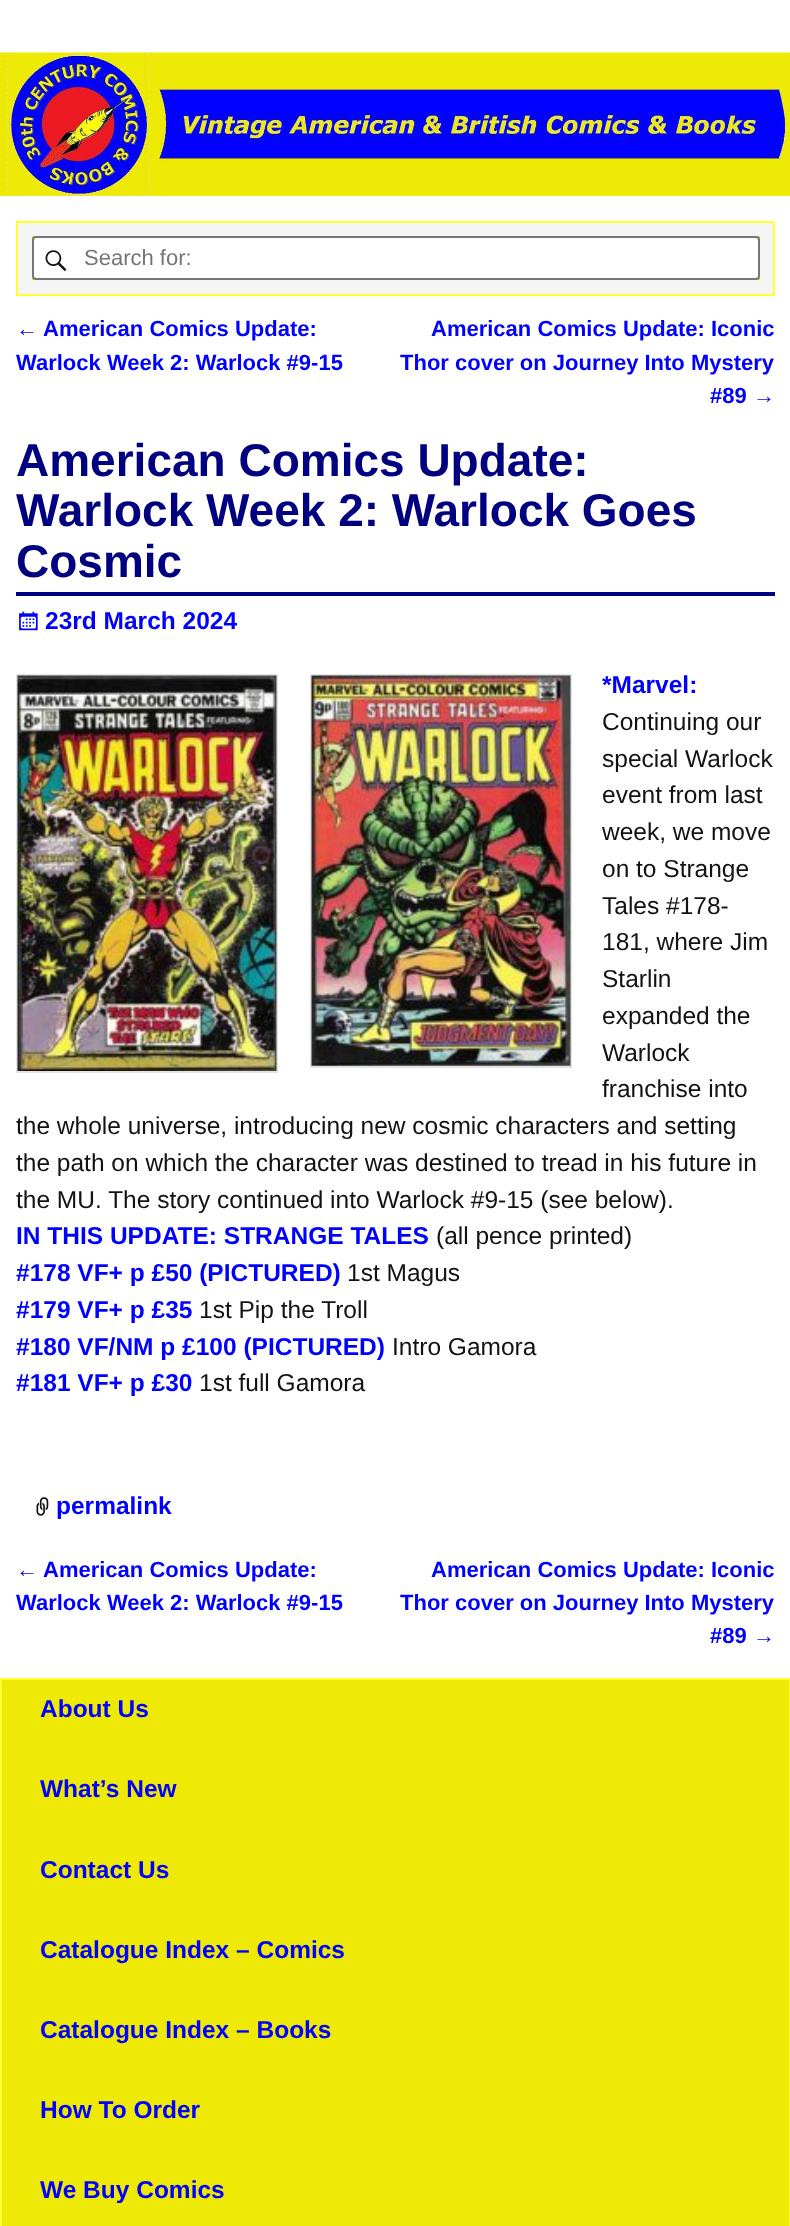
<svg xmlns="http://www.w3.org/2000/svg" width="790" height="2226">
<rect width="100%" height="100%" fill="#fff"/>
<image x="0" y="52" width="790" height="144" href="media/1.png"/>
<rect x="17" y="222" width="757" height="73" fill="#f5f5f5" stroke="#ff3" stroke-width="2"/>
<rect x="32" y="236" width="728" height="44" fill="#eee905"/>
<rect x="33" y="237" width="726" height="42" rx="3" fill="#fff" stroke="#767676" stroke-width="2"/>
<image x="45" y="250" width="22" height="22" href="media/2.png"/>
<text x="84" y="265" style="font-family:Liberation Sans;font-size:22px;fill:#757575">Search for:</text>
<text x="16" y="336" style="font-family:Liberation Sans;font-size:22px;fill:#00f">←</text>
<text x="43" y="336" style="font-family:Liberation Sans;font-size:22px;font-weight:bold;fill:#00f">American Comics Update:</text>
<text x="16" y="370" style="font-family:Liberation Sans;font-size:22px;font-weight:bold;fill:#00f">Warlock Week 2: Warlock #9-15</text>
<text x="431" y="336" style="font-family:Liberation Sans;font-size:22px;font-weight:bold;fill:#00f">American Comics Update: Iconic</text>
<text x="400" y="370" style="font-family:Liberation Sans;font-size:22px;font-weight:bold;fill:#00f">Thor cover on Journey Into Mystery</text>
<text x="710" y="403" style="font-family:Liberation Sans;font-size:22px;font-weight:bold;fill:#00f">#89</text>
<text x="753" y="403" style="font-family:Liberation Sans;font-size:22px;fill:#00f">→</text>
<rect x="16" y="592" width="759" height="4" fill="#000080"/>
<text x="16" y="476" style="font-family:Liberation Sans;font-size:46px;font-weight:bold;fill:#000080">American Comics Update:</text>
<text x="16" y="526" style="font-family:Liberation Sans;font-size:46px;font-weight:bold;fill:#000080">Warlock Week 2: Warlock Goes</text>
<text x="16" y="577" style="font-family:Liberation Sans;font-size:46px;font-weight:bold;fill:#000080">Cosmic</text>
<image x="19" y="611" width="19" height="20" href="media/3.png"/>
<text x="45" y="629" style="font-family:Liberation Sans;font-size:24.5px;font-weight:bold;fill:#00f">23rd March 2024</text>
<rect x="16" y="674" width="262" height="399" fill="#e3e3e3"/>
<image x="17" y="675" width="260" height="396" href="media/4.png"/>
<rect x="310" y="674" width="262" height="394" fill="#e3e3e3"/>
<image x="311" y="675" width="260" height="391" href="media/5.png"/>
<text x="602" y="693" style="font-family:Liberation Sans;font-size:24.5px;font-weight:bold;fill:#00f">*Marvel:</text>
<text x="602" y="730" style="font-family:Liberation Sans;font-size:24.5px;fill:#121212">Continuing our</text>
<text x="602" y="767" style="font-family:Liberation Sans;font-size:24.5px;fill:#121212">special Warlock</text>
<text x="602" y="803" style="font-family:Liberation Sans;font-size:24.5px;fill:#121212">event from last</text>
<text x="602" y="840" style="font-family:Liberation Sans;font-size:24.5px;fill:#121212">week, we move</text>
<text x="602" y="877" style="font-family:Liberation Sans;font-size:24.5px;fill:#121212">on to Strange</text>
<text x="602" y="914" style="font-family:Liberation Sans;font-size:24.5px;fill:#121212">Tales #178-</text>
<text x="602" y="950" style="font-family:Liberation Sans;font-size:24.5px;fill:#121212">181, where Jim</text>
<text x="602" y="987" style="font-family:Liberation Sans;font-size:24.5px;fill:#121212">Starlin</text>
<text x="602" y="1024" style="font-family:Liberation Sans;font-size:24.5px;fill:#121212">expanded the</text>
<text x="602" y="1061" style="font-family:Liberation Sans;font-size:24.5px;fill:#121212">Warlock</text>
<text x="602" y="1097" style="font-family:Liberation Sans;font-size:24.5px;fill:#121212">franchise into</text>
<text x="16" y="1134" style="font-family:Liberation Sans;font-size:24.5px;fill:#121212">the whole universe, introducing new cosmic characters and setting</text>
<text x="16" y="1171" style="font-family:Liberation Sans;font-size:24.5px;fill:#121212">the path on which the character was destined to tread in his future in</text>
<text x="16" y="1208" style="font-family:Liberation Sans;font-size:24.5px;fill:#121212">the MU. The story continued into Warlock #9-15 (see below).</text>
<text x="16" y="1244" style="font-family:Liberation Sans;font-size:24.5px;font-weight:bold;fill:#00f">IN THIS UPDATE: STRANGE TALES</text>
<text x="436" y="1244" style="font-family:Liberation Sans;font-size:24.5px;fill:#121212">(all pence printed)</text>
<text x="16" y="1281" style="font-family:Liberation Sans;font-size:24.5px;font-weight:bold;fill:#00f">#178 VF+ p £50 (PICTURED)</text>
<text x="347" y="1281" style="font-family:Liberation Sans;font-size:24.5px;fill:#121212">1st Magus</text>
<text x="16" y="1318" style="font-family:Liberation Sans;font-size:24.5px;font-weight:bold;fill:#00f">#179 VF+ p £35</text>
<text x="199" y="1318" style="font-family:Liberation Sans;font-size:24.5px;fill:#121212">1st Pip the Troll</text>
<text x="16" y="1355" style="font-family:Liberation Sans;font-size:24.5px;font-weight:bold;fill:#00f">#180 VF/NM p £100 (PICTURED)</text>
<text x="392" y="1355" style="font-family:Liberation Sans;font-size:24.5px;fill:#121212">Intro Gamora</text>
<text x="16" y="1391" style="font-family:Liberation Sans;font-size:24.5px;font-weight:bold;fill:#00f">#181 VF+ p £30</text>
<text x="199" y="1391" style="font-family:Liberation Sans;font-size:24.5px;fill:#121212">1st full Gamora</text>
<image x="36" y="1497" width="13" height="19" href="media/6.png"/>
<text x="56" y="1514" style="font-family:Liberation Sans;font-size:24.5px;font-weight:bold;fill:#00f">permalink</text>
<text x="16" y="1577" style="font-family:Liberation Sans;font-size:22px;fill:#00f">←</text>
<text x="43" y="1577" style="font-family:Liberation Sans;font-size:22px;font-weight:bold;fill:#00f">American Comics Update:</text>
<text x="16" y="1610" style="font-family:Liberation Sans;font-size:22px;font-weight:bold;fill:#00f">Warlock Week 2: Warlock #9-15</text>
<text x="431" y="1577" style="font-family:Liberation Sans;font-size:22px;font-weight:bold;fill:#00f">American Comics Update: Iconic</text>
<text x="400" y="1610" style="font-family:Liberation Sans;font-size:22px;font-weight:bold;fill:#00f">Thor cover on Journey Into Mystery</text>
<text x="710" y="1643" style="font-family:Liberation Sans;font-size:22px;font-weight:bold;fill:#00f">#89</text>
<text x="753" y="1643" style="font-family:Liberation Sans;font-size:22px;fill:#00f">→</text>
<rect x="1" y="1679" width="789" height="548" fill="#eee905" stroke="#ff3" stroke-width="2"/>
<text x="40" y="1717" style="font-family:Liberation Sans;font-size:24.5px;font-weight:bold;fill:#00f">About Us</text>
<text x="40" y="1797" style="font-family:Liberation Sans;font-size:24.5px;font-weight:bold;fill:#00f">What’s New</text>
<text x="40" y="1878" style="font-family:Liberation Sans;font-size:24.5px;font-weight:bold;fill:#00f">Contact Us</text>
<text x="40" y="1958" style="font-family:Liberation Sans;font-size:24.5px;font-weight:bold;fill:#00f">Catalogue Index – Comics</text>
<text x="40" y="2038" style="font-family:Liberation Sans;font-size:24.5px;font-weight:bold;fill:#00f">Catalogue Index – Books</text>
<text x="40" y="2118" style="font-family:Liberation Sans;font-size:24.5px;font-weight:bold;fill:#00f">How To Order</text>
<text x="40" y="2198" style="font-family:Liberation Sans;font-size:24.5px;font-weight:bold;fill:#00f">We Buy Comics</text>
</svg>
